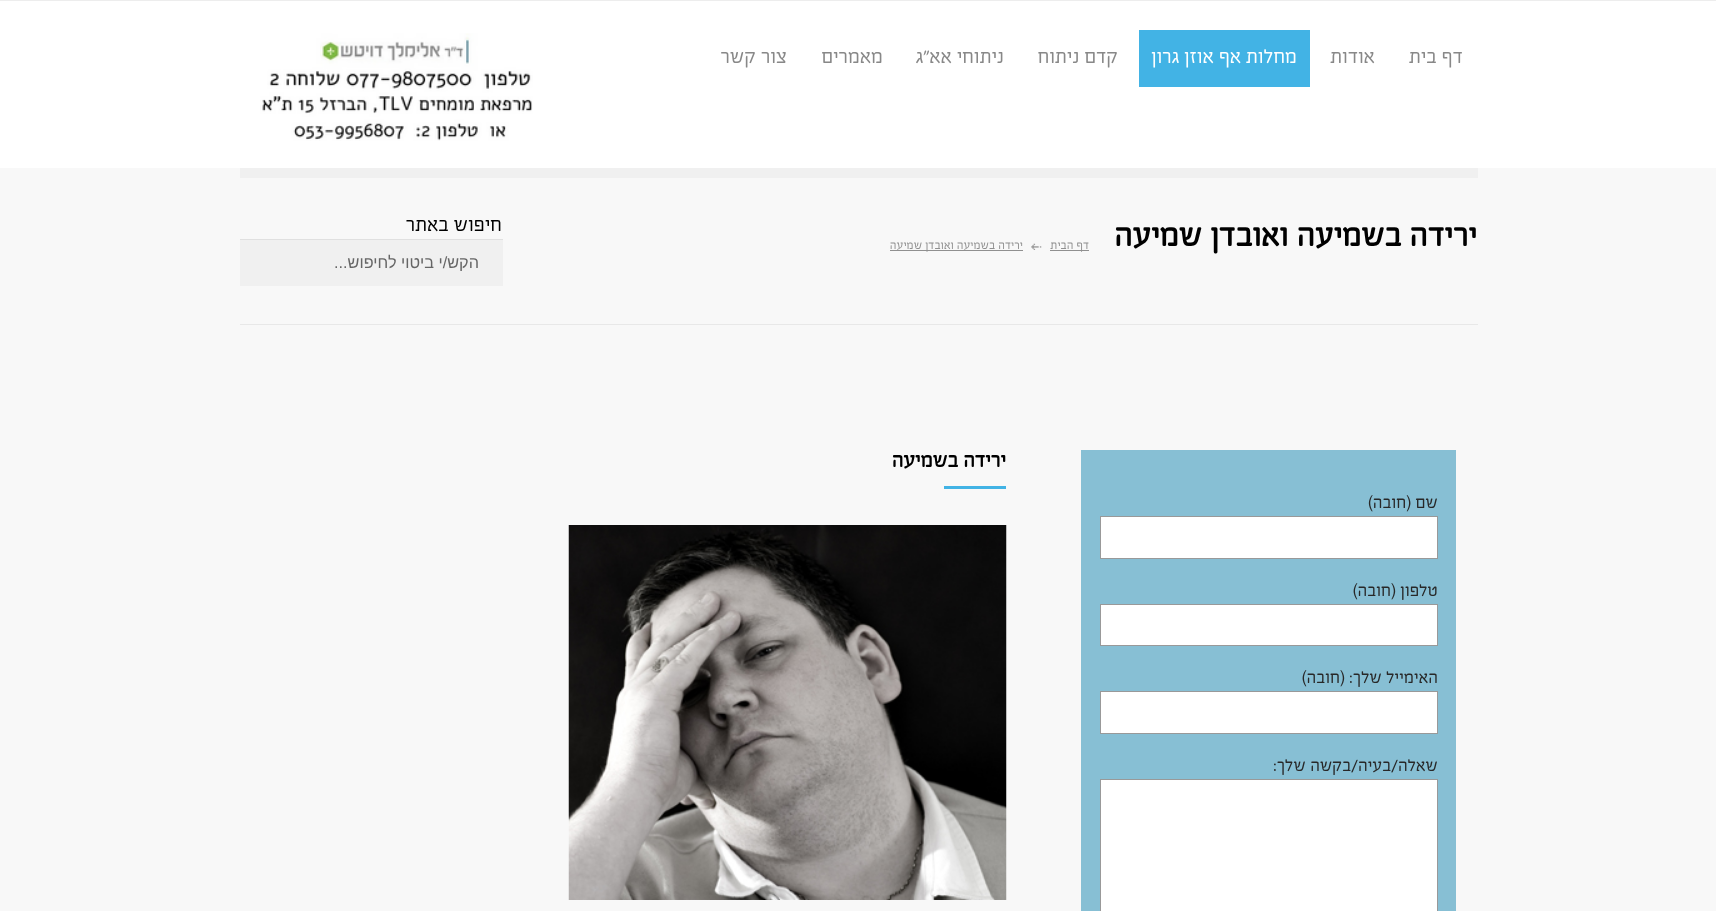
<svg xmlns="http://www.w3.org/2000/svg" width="1716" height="911">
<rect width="100%" height="100%" fill="#f8f8f8"/>
<rect width="1716" height="1" fill="#ededed"/>
<rect y="1" width="1716" height="167" fill="#fff"/>
<text x="1463" y="63" style="font-family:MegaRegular;font-size:23.25px;direction:rtl;fill:#888">דף בית</text>
<text x="1375" y="63" style="font-family:MegaRegular;font-size:23.25px;direction:rtl;fill:#888">אודות</text>
<rect x="1139" y="30" width="171" height="57" fill="#42b3e5"/>
<text x="1297" y="63" style="font-family:MegaRegular;font-size:23.25px;direction:rtl;fill:#fff">מחלות אף אוזן גרון</text>
<text x="1118" y="63" style="font-family:MegaRegular;font-size:23.25px;direction:rtl;fill:#888">קדם ניתוח</text>
<text x="1004" y="63" style="font-family:MegaRegular;font-size:23.25px;direction:rtl;fill:#888">ניתוחי אא״ג</text>
<text x="883" y="63" style="font-family:MegaRegular;font-size:23.25px;direction:rtl;fill:#888">מאמרים</text>
<text x="787" y="63" style="font-family:MegaRegular;font-size:23.25px;direction:rtl;fill:#888">צור קשר</text>
<image x="260" y="33" width="273" height="108" href="media/1.png"/>
<rect x="240" y="168" width="1238" height="10" fill="#f0f0f0"/>
<rect x="240" y="324" width="1238" height="1" fill="#e8e8e8"/>
<text x="1477" y="246" style="font-family:MegaRegular;font-size:37.5px;font-weight:bold;direction:rtl;fill:#000">ירידה בשמיעה ואובדן שמיעה</text>
<rect x="1050" y="250" width="39" height="1" fill="#909090"/>
<text x="1089" y="249" style="font-family:MegaRegular;font-size:13.75px;direction:rtl;fill:#909090">דף הבית</text>
<image x="1031" y="243" width="11" height="7" href="media/2.png"/>
<rect x="890" y="250" width="133" height="1" fill="#909090"/>
<text x="1023" y="249" style="font-family:MegaRegular;font-size:13.75px;direction:rtl;fill:#909090">ירידה בשמיעה ואובדן שמיעה</text>
<text x="502" y="231" style="font-family:MegaRegular;font-size:23.25px;direction:rtl;fill:#000">חיפוש באתר</text>
<rect x="240" y="240" width="263" height="46" fill="#f0f0f0"/>
<rect x="240" y="239" width="263" height="1" fill="#e0e0e0"/>
<text x="479" y="268" style="font-family:Liberation Sans;font-size:16.25px;direction:rtl;fill:#666">הקש/י ביטוי לחיפוש...</text>
<text x="1006" y="467" style="font-family:MegaRegular;font-size:23.75px;font-weight:bold;direction:rtl;fill:#000">ירידה בשמיעה</text>
<rect x="944" y="486" width="62" height="3" fill="#42b3e5"/>
<image x="568" y="525" width="439" height="375" href="media/3.png"/>
<rect x="1081" y="450" width="375" height="461" fill="#87bfd4"/>
<text x="1438" y="508" style="font-family:MegaRegular;font-size:20px;direction:rtl;fill:#282828">שם (חובה)</text>
<rect x="1100.5" y="516.5" width="337" height="42" fill="#fff" stroke="#999"/>
<text x="1438" y="596" style="font-family:MegaRegular;font-size:20px;direction:rtl;fill:#282828">טלפון (חובה)</text>
<rect x="1100.5" y="604.5" width="337" height="41" fill="#fff" stroke="#999"/>
<text x="1438" y="683" style="font-family:MegaRegular;font-size:20px;direction:rtl;fill:#282828">האימייל שלך: (חובה)</text>
<rect x="1100.5" y="691.5" width="337" height="42" fill="#fff" stroke="#999"/>
<text x="1438" y="771" style="font-family:MegaRegular;font-size:20px;direction:rtl;fill:#282828">שאלה/בעיה/בקשה שלך:</text>
<rect x="1100.5" y="779.5" width="337" height="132" fill="#fff" stroke="#999"/>
</svg>
